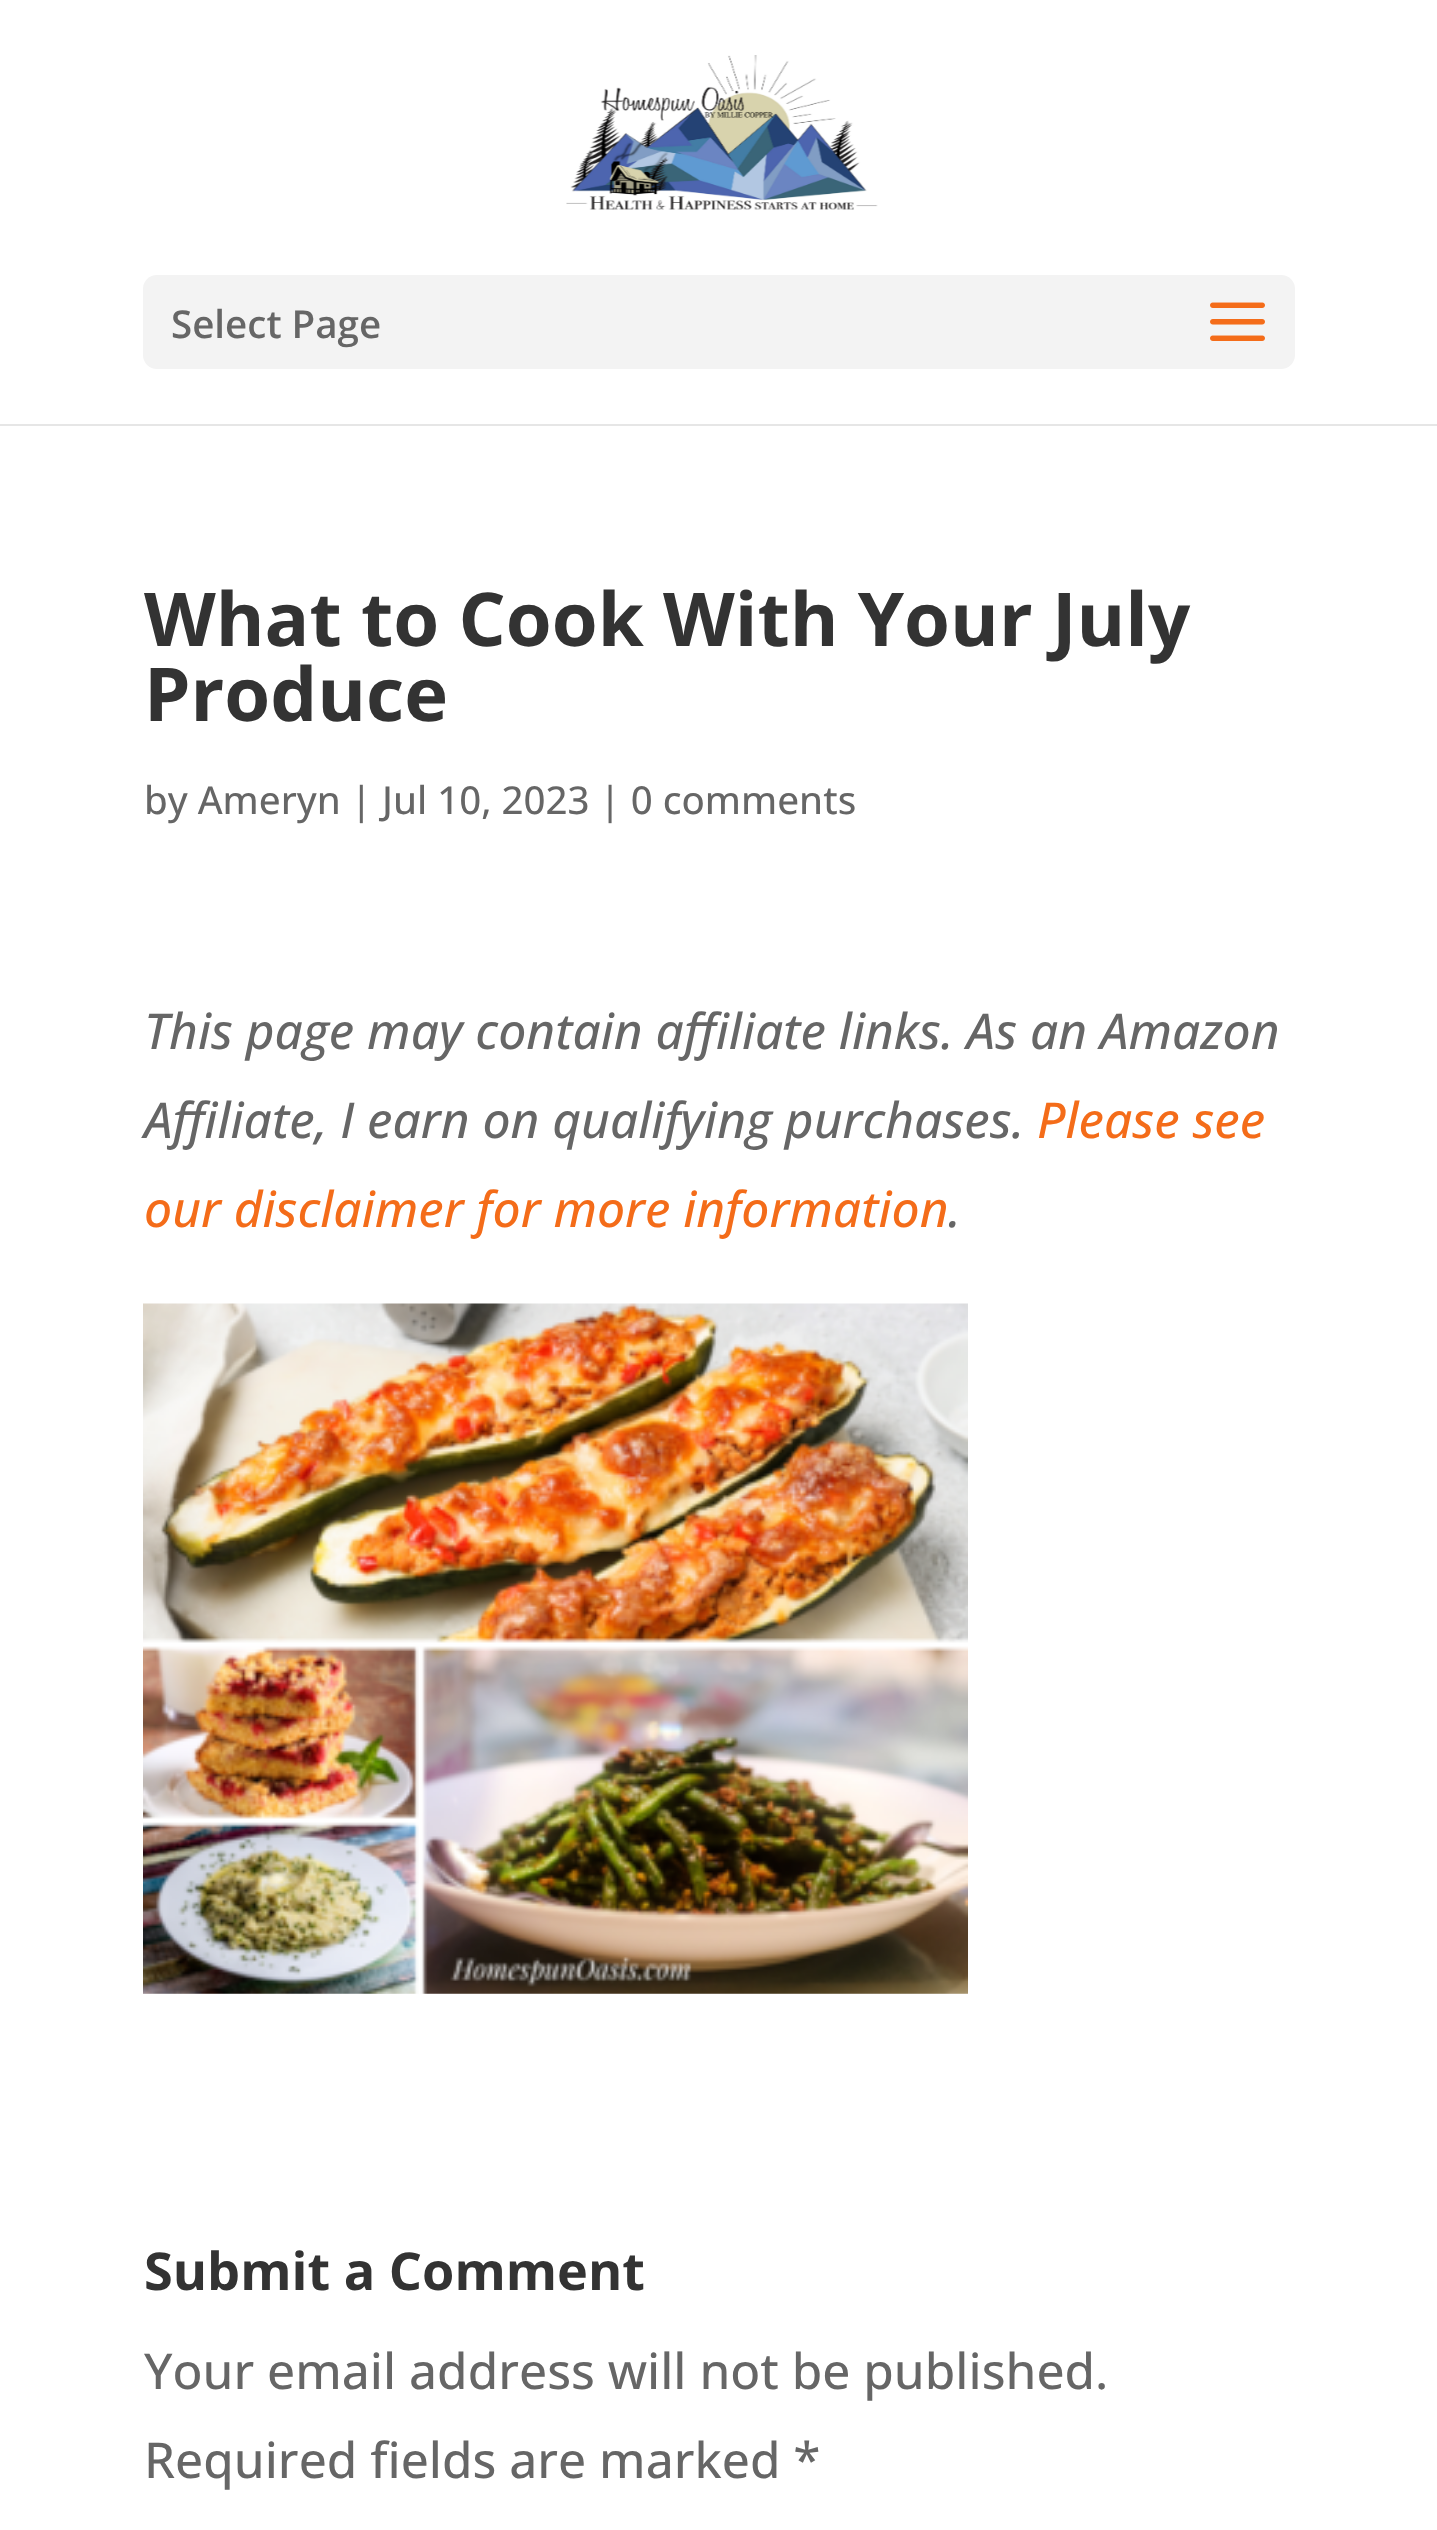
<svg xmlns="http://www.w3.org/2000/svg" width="1437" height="2530">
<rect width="100%" height="100%" fill="#fff"/>
<rect y="424" width="1437" height="2" fill="#e6e6e6"/>
<image x="566" y="55" width="312" height="155" href="media/1.png"/>
<rect x="143" y="275" width="1152" height="94" rx="14" fill="#f3f3f3"/>
<text x="171" y="338" style="font-family:Open Sans;font-size:38.5px;font-weight:600;fill:#666">Select Page</text>
<image x="1210" y="302" width="55" height="39" href="media/2.png"/>
<text x="144" y="646" style="font-family:Open Sans;font-size:74.25px;font-weight:bold;fill:#333">What to Cook With Your July</text>
<text x="144" y="721" style="font-family:Open Sans;font-size:74.25px;font-weight:bold;fill:#333">Produce</text>
<text x="144" y="814" style="font-family:Open Sans;font-size:38.5px;font-weight:500;fill:#666">by Ameryn | Jul 10, 2023 | 0 comments</text>
<text x="144" y="1049" style="font-family:Open Sans;font-size:49.5px;font-weight:500;font-style:italic;fill:#666">This page may contain affiliate links. As an Amazon</text>
<text x="144" y="1138" style="font-family:Open Sans;font-size:49.5px;font-weight:500;font-style:italic;fill:#666">Affiliate, I earn on qualifying purchases.</text>
<text x="1037" y="1138" style="font-family:Open Sans;font-size:49.5px;font-weight:500;font-style:italic;fill:#f46c19">Please see</text>
<text x="144" y="1227" style="font-family:Open Sans;font-size:49.5px;font-weight:500;font-style:italic;fill:#f46c19">our disclaimer for more information</text>
<text x="948" y="1227" style="font-family:Open Sans;font-size:49.5px;font-weight:500;font-style:italic;fill:#666">.</text>
<image x="143" y="1303" width="825" height="691" href="media/3.png"/>
<text x="144" y="2290" style="font-family:Open Sans;font-size:52.25px;font-weight:bold;fill:#333">Submit a Comment</text>
<text x="144" y="2389" style="font-family:Open Sans;font-size:49.5px;font-weight:500;fill:#666">Your email address will not be published.</text>
<text x="144" y="2478" style="font-family:Open Sans;font-size:49.5px;font-weight:500;fill:#666">Required fields are marked *</text>
</svg>
